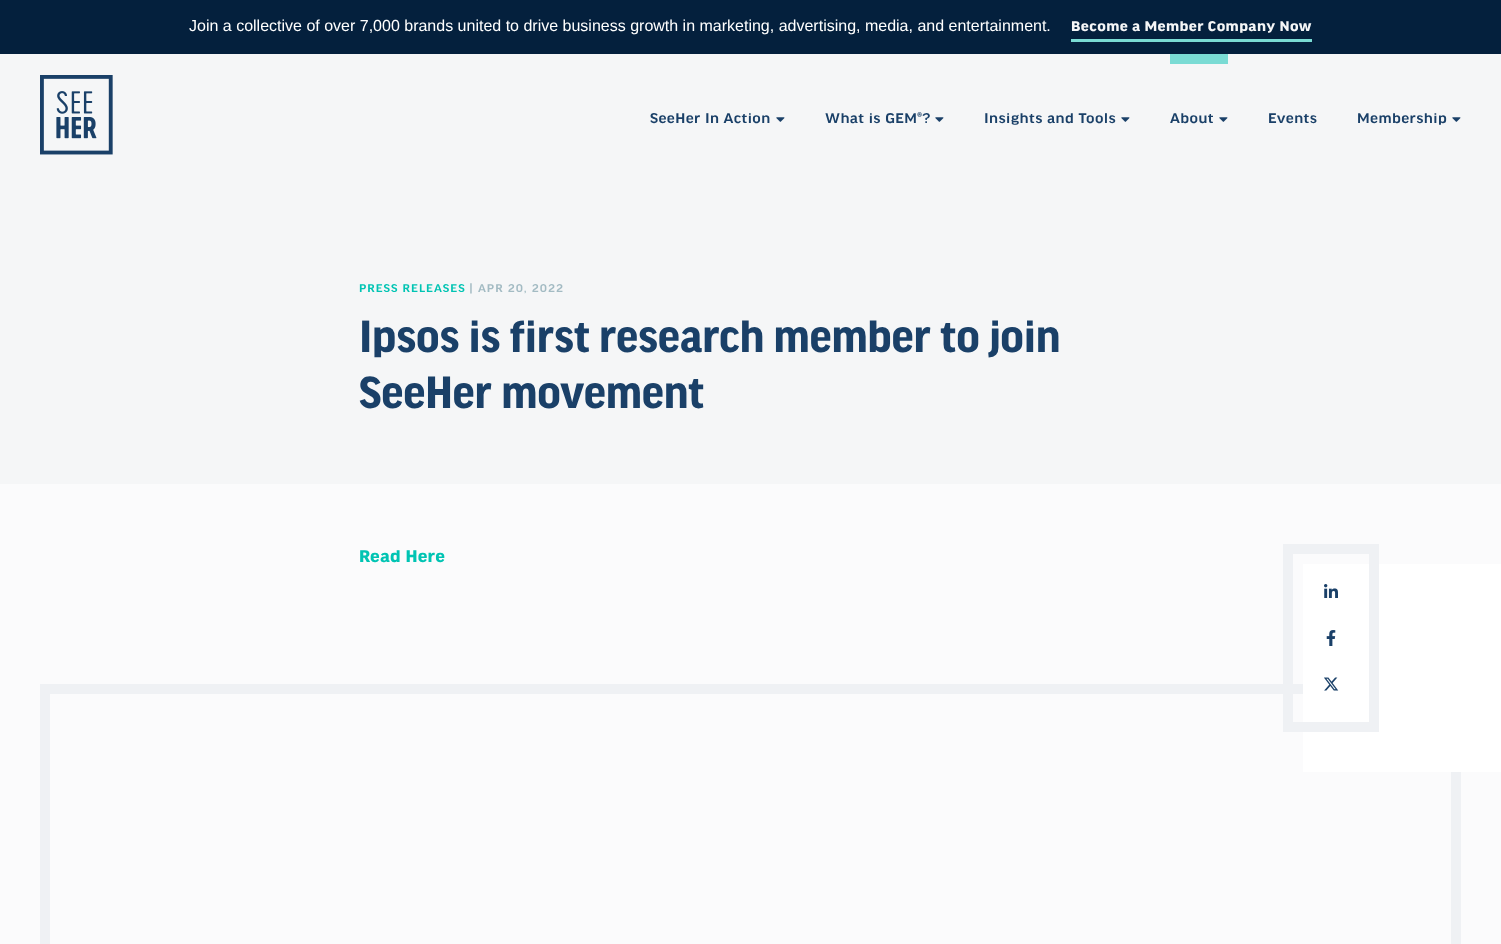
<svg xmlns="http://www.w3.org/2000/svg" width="1501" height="944">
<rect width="100%" height="100%" fill="#fbfbfc"/>
<rect width="1501" height="54" fill="#04203d"/>
<text x="189" y="31" style="font-family:Liberation Sans;font-size:16px;fill:#fff">Join a collective of over 7,000 brands united to drive business growth in marketing, advertising, media, and entertainment.</text>
<text x="1071" y="31" style="font-family:'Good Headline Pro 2';font-size:15px;font-weight:bold;letter-spacing:0.4px;fill:#f5f6f7">Become a Member Company Now</text>
<rect x="1071" y="39" width="241" height="3" fill="#7adbd4"/>
<rect y="54" width="1501" height="430" fill="#f5f6f7"/>
<image x="40" y="75" width="73" height="80" href="media/1.png"/>
<text x="650" y="123" style="font-family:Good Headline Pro;font-size:15px;font-weight:500;letter-spacing:0.4px;fill:#1a4068">SeeHer In Action</text>
<image x="776" y="117" width="9" height="5" href="media/2.png"/>
<text x="825" y="123" style="font-family:Good Headline Pro;font-size:15px;font-weight:500;letter-spacing:0.4px;fill:#1a4068">What is GEM®?</text>
<image x="935" y="117" width="9" height="5" href="media/2.png"/>
<text x="984" y="123" style="font-family:Good Headline Pro;font-size:15px;font-weight:500;letter-spacing:0.4px;fill:#1a4068">Insights and Tools</text>
<image x="1121" y="117" width="9" height="5" href="media/2.png"/>
<rect x="1170" y="54" width="58" height="10" fill="#7adbd4"/>
<text x="1170" y="123" style="font-family:Good Headline Pro;font-size:15px;font-weight:500;letter-spacing:0.4px;fill:#1a4068">About</text>
<image x="1219" y="117" width="9" height="5" href="media/2.png"/>
<text x="1268" y="123" style="font-family:Good Headline Pro;font-size:15px;font-weight:500;letter-spacing:0.4px;fill:#1a4068">Events</text>
<text x="1357" y="123" style="font-family:Good Headline Pro;font-size:15px;font-weight:500;letter-spacing:0.4px;fill:#1a4068">Membership</text>
<image x="1452" y="117" width="9" height="5" href="media/2.png"/>
<text x="359" y="292" style="font-family:Good Headline Pro;font-size:12px;font-weight:500;letter-spacing:1px;fill:#00c4b3">PRESS RELEASES</text>
<text x="469" y="292" style="font-family:Good Headline Pro;font-size:12px;font-weight:500;letter-spacing:1px;fill:#a3bbc3">| APR 20, 2022</text>
<text x="359" y="352" style="font-family:Good Headline Pro;font-size:48px;font-weight:bold;letter-spacing:-0.2px;fill:#1a4068">Ipsos is first research member to join</text>
<text x="359" y="408" style="font-family:Good Headline Pro;font-size:48px;font-weight:bold;letter-spacing:-0.2px;fill:#1a4068">SeeHer movement</text>
<text x="359" y="562" style="font-family:'Good Headline Pro 2';font-size:18px;font-weight:bold;letter-spacing:0.25px;fill:#00c4b3">Read Here</text>
<rect x="45" y="689" width="1411" height="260" fill="none" stroke="#eff1f4" stroke-width="10"/>
<rect x="1303" y="564" width="198" height="208" fill="#fff"/>
<rect x="1288" y="549" width="86" height="178" fill="none" stroke="#eff1f4" stroke-width="10"/>
<image x="1324" y="584" width="14" height="14" href="media/3.png"/>
<image x="1326" y="630" width="10" height="16" href="media/4.png"/>
<image x="1324" y="677" width="15" height="14" href="media/5.png"/>
</svg>
